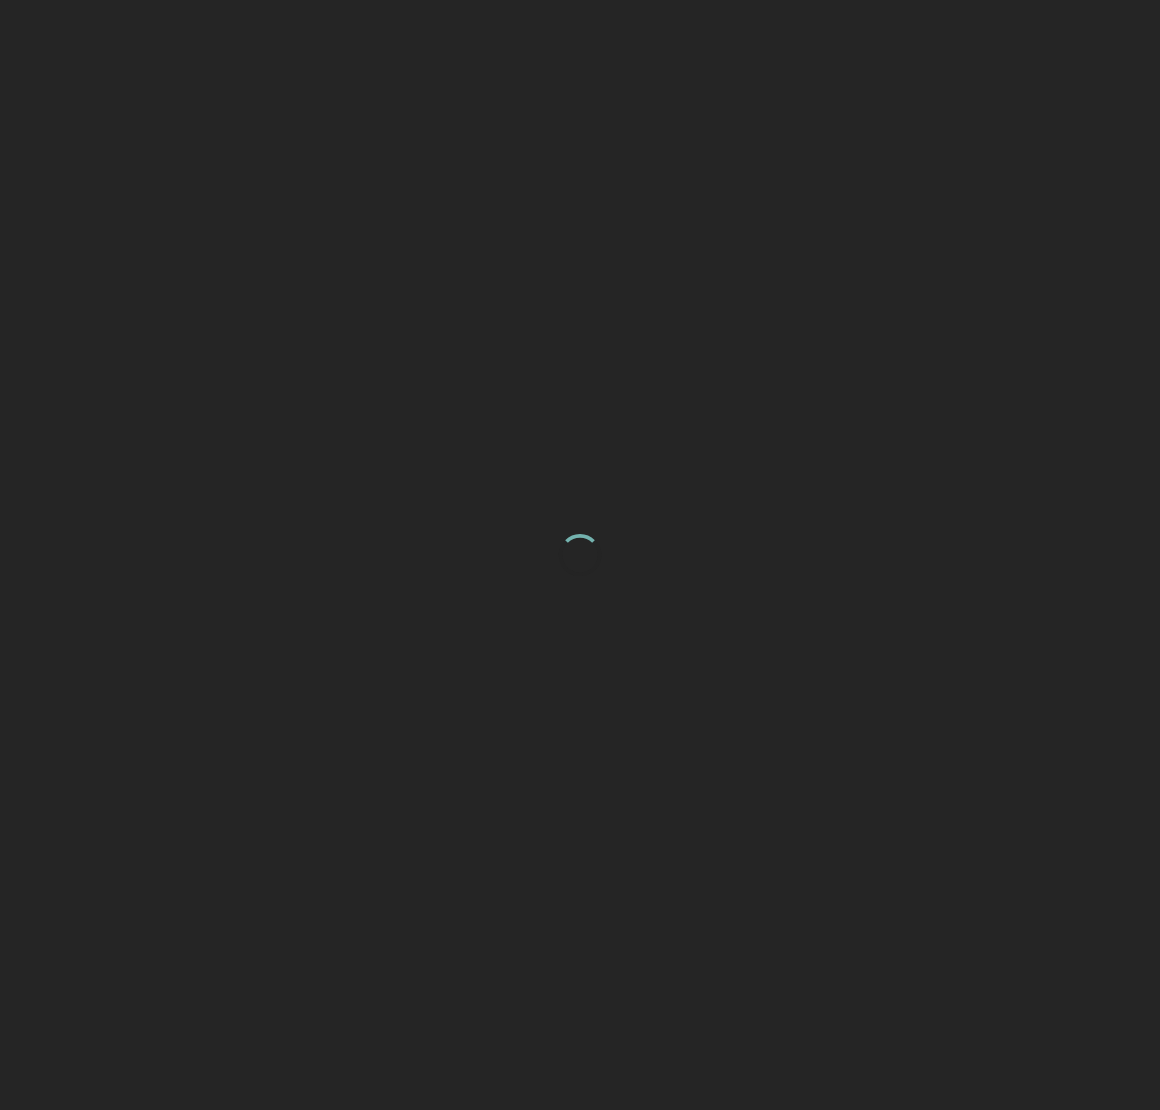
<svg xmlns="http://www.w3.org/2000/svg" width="1160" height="1110">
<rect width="100%" height="100%" fill="#252525"/>
<path d="M566.5 541.5c7.5-7.5 19.5-7.5 27 0" fill="none" stroke="#74b3af" stroke-width="3.8"/>
<path d="M593.5 541.5c4 3.5 6 8.5 6 13.5c0 23-34 26.5-38.5 4c-1.5-6.5 1-13 5.5-17.5" fill="none" stroke="#1d1d1d1a" stroke-width="3.8"/>
</svg>
